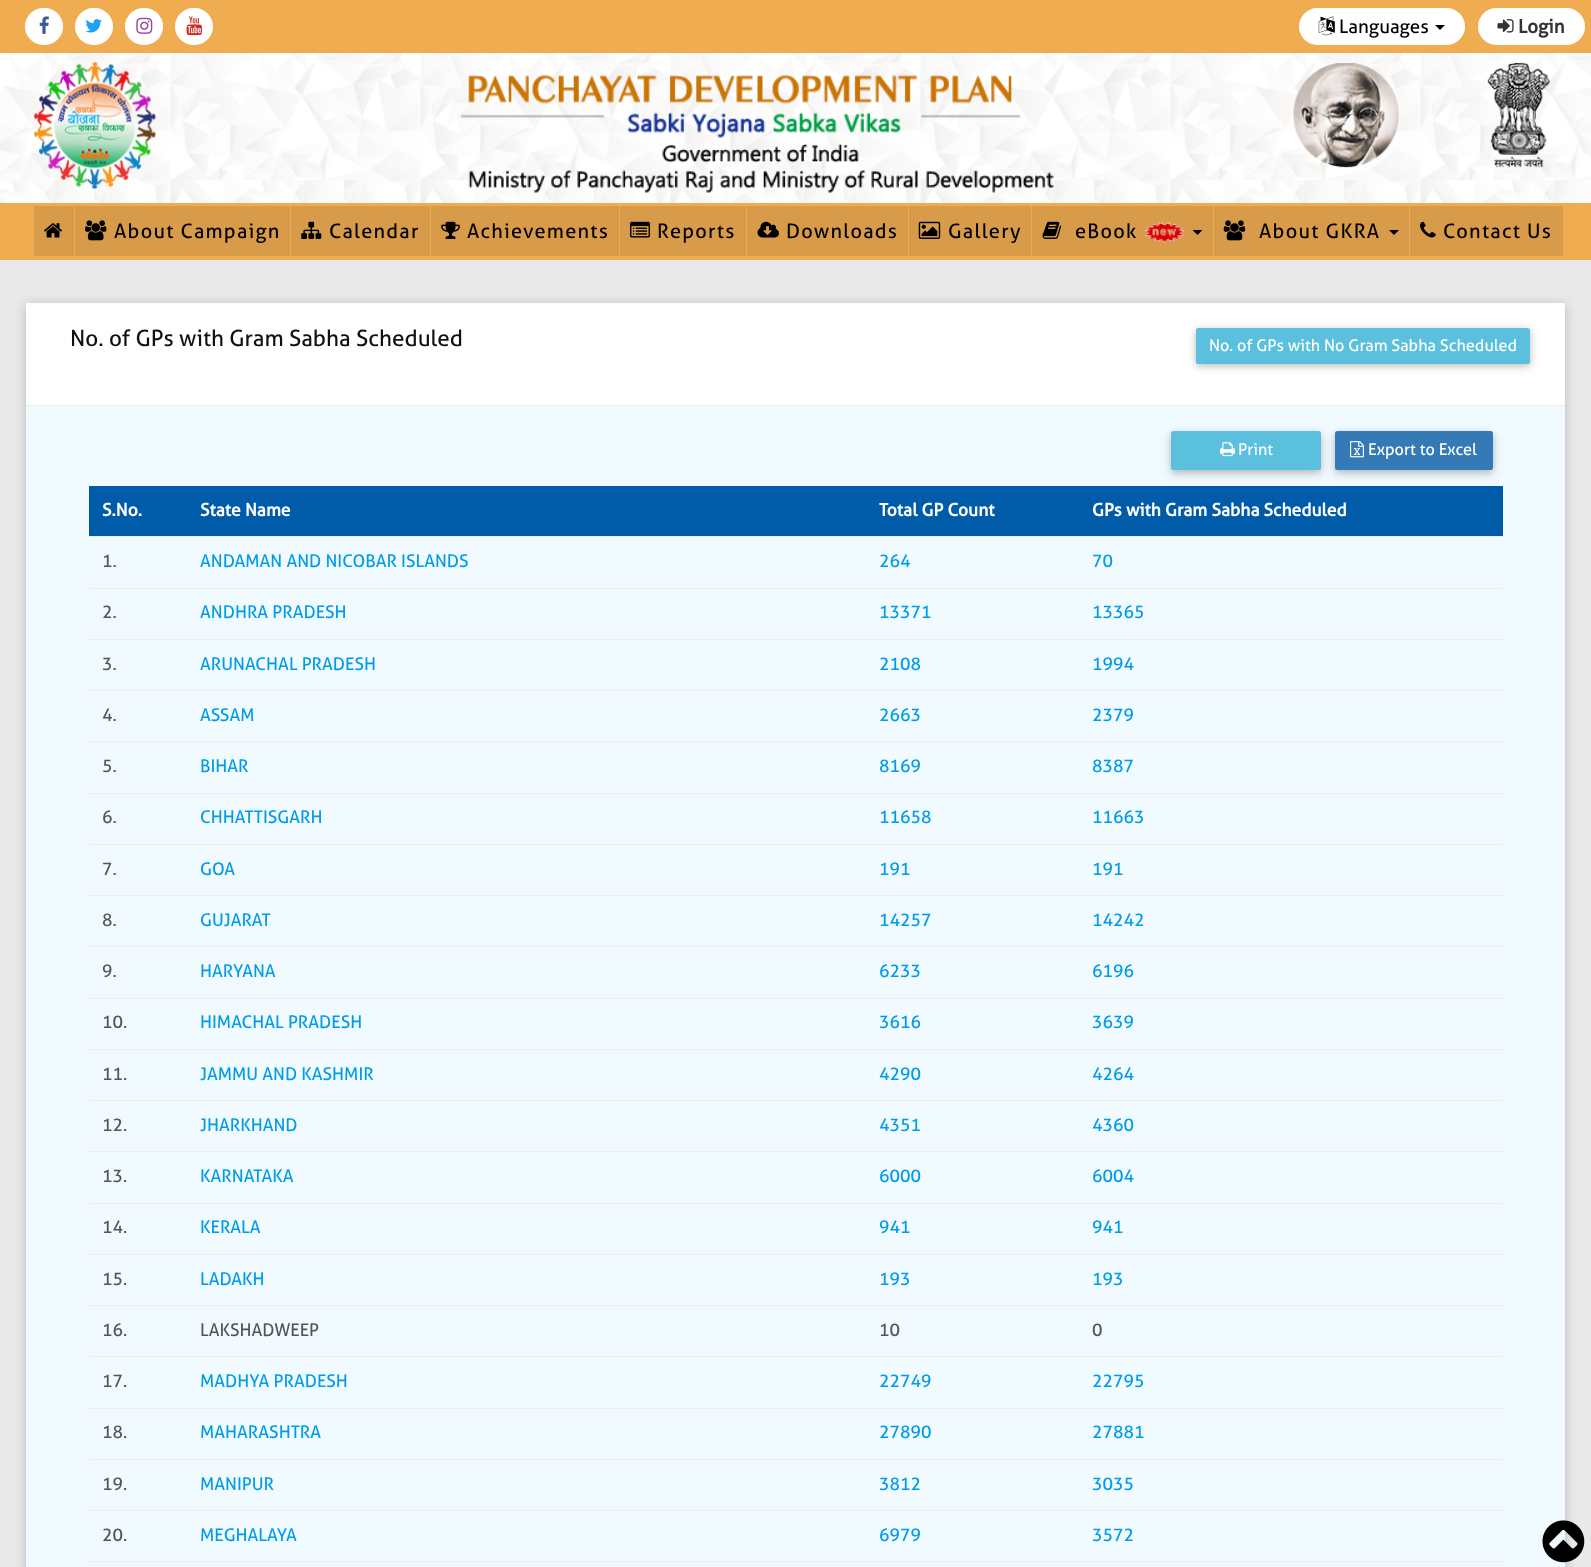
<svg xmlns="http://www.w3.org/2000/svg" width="1591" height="1567">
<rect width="100%" height="100%" fill="#fff"/>
<image x="0" y="53" width="1591" height="150" href="media/1.png"/>
<rect width="1591" height="53" fill="#efac51"/>
<rect x="25" y="8" width="38" height="37" rx="18.5" fill="#fff"/>
<rect x="25.5" y="8.5" width="37" height="36" rx="18" fill="none" stroke="#ffffff6e"/>
<image x="39" y="16" width="10" height="18" href="media/2.png"/>
<rect x="75" y="8" width="38" height="37" rx="18.5" fill="#fff"/>
<rect x="75.5" y="8.5" width="37" height="36" rx="18" fill="none" stroke="#ffffff6e"/>
<image x="85" y="19" width="17" height="14" href="media/3.png"/>
<rect x="125" y="8" width="38" height="37" rx="18.5" fill="#fff"/>
<rect x="125.5" y="8.5" width="37" height="36" rx="18" fill="none" stroke="#ffffff6e"/>
<image x="136" y="17" width="17" height="17" href="media/4.png"/>
<rect x="175" y="8" width="38" height="37" rx="18.5" fill="#fff"/>
<rect x="175.5" y="8.5" width="37" height="36" rx="18" fill="none" stroke="#ffffff6e"/>
<image x="186" y="16" width="17" height="20" href="media/5.png"/>
<rect x="1299" y="8" width="166" height="37" rx="18.5" fill="#fff"/>
<rect x="1299.5" y="8.5" width="165" height="36" rx="18" fill="none" stroke="#ffffff6e"/>
<image x="1318" y="16" width="17" height="20" href="media/6.png"/>
<text x="1339" y="33" style="font-family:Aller;font-size:18.75px;fill:#000">Languages</text>
<path d="M1435 25h10l-5 5z" fill="#000"/>
<rect x="1478" y="8" width="107" height="37" rx="18.5" fill="#fff"/>
<rect x="1478.5" y="8.5" width="106" height="36" rx="18" fill="none" stroke="#ffffff6e"/>
<image x="1497" y="19" width="17" height="14" href="media/7.png"/>
<text x="1518" y="33" style="font-family:Aller;font-size:18.75px;font-weight:bold;fill:#333">Login</text>
<image x="34" y="61" width="122" height="128" href="media/8.png"/>
<image x="461" y="74" width="593" height="119" href="media/9.png"/>
<image x="1293" y="62" width="257" height="106" href="media/10.png"/>
<rect y="203" width="1591" height="57" fill="#efac51"/>
<rect x="34" y="206" width="40" height="50" fill="#d79b49"/>
<image x="44" y="223" width="18" height="15" href="media/11.png"/>
<rect x="75" y="206" width="215" height="50" fill="#d79b49"/>
<image x="85" y="220" width="22" height="21" href="media/12.png"/>
<text x="114" y="238" style="font-family:Aller;font-size:20px;letter-spacing:1.25px;fill:#000">About Campaign</text>
<rect x="291" y="206" width="139" height="50" fill="#d79b49"/>
<image x="301" y="221" width="21" height="18" href="media/13.png"/>
<text x="329" y="238" style="font-family:Aller;font-size:20px;letter-spacing:1.25px;fill:#000">Calendar</text>
<rect x="431" y="206" width="188" height="50" fill="#d79b49"/>
<image x="441" y="221" width="19" height="18" href="media/14.png"/>
<text x="467" y="238" style="font-family:Aller;font-size:20px;letter-spacing:1.25px;fill:#000">Achievements</text>
<rect x="620" y="206" width="288" height="50" fill="#d79b49"/>
<rect x="746" y="206" width="1" height="50" fill="#efac51"/>
<image x="630" y="221" width="20" height="17" href="media/15.png"/>
<text x="657" y="238" style="font-family:Aller;font-size:20px;letter-spacing:1.25px;fill:#000">Reports</text>
<image x="757" y="221" width="22" height="17" href="media/16.png"/>
<text x="786" y="238" style="font-family:Aller;font-size:20px;letter-spacing:1.25px;fill:#000">Downloads</text>
<rect x="909" y="206" width="304" height="50" fill="#d79b49"/>
<rect x="1031" y="206" width="1" height="50" fill="#efac51"/>
<image x="918" y="221" width="23" height="18" href="media/17.png"/>
<text x="948" y="238" style="font-family:Aller;font-size:20px;letter-spacing:1.25px;fill:#000">Gallery</text>
<image x="1042" y="221" width="20" height="18" href="media/18.png"/>
<text x="1075" y="238" style="font-family:Aller;font-size:20px;letter-spacing:1.25px;fill:#000">eBook</text>
<image x="1144" y="222" width="40" height="21" href="media/19.png"/>
<path d="M1192.5 230h10l-5 5z" fill="#000"/>
<rect x="1214" y="206" width="195" height="50" fill="#d79b49"/>
<image x="1223" y="220" width="23" height="21" href="media/20.png"/>
<text x="1259" y="238" style="font-family:Aller;font-size:20px;letter-spacing:1.25px;fill:#000">About GKRA</text>
<path d="M1389 230h10l-5 5z" fill="#000"/>
<rect x="1410" y="206" width="153" height="50" fill="#d79b49"/>
<image x="1420" y="221" width="16" height="17" href="media/21.png"/>
<text x="1443" y="238" style="font-family:Aller;font-size:20px;letter-spacing:1.25px;fill:#000">Contact Us</text>
<rect y="260" width="1591" height="1307" fill="#e9e9e9"/>
<rect x="26" y="305" width="1539" height="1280" fill="#00000033" filter="blur(6px)"/>
<rect x="26" y="303" width="1539" height="102" fill="#fff"/>
<rect x="26" y="405" width="1539" height="1" fill="#ededed"/>
<text x="70" y="346" style="font-family:Aller;font-size:22.5px;fill:#111">No. of GPs with Gram Sabha Scheduled</text>
<rect x="1196" y="330" width="334" height="36" rx="2.5" fill="#0000001f" filter="blur(6px)"/>
<rect x="1196" y="330" width="334" height="36" rx="2.5" fill="#00000029" filter="blur(3px)"/>
<rect x="1196" y="328" width="334" height="36" rx="2.5" fill="#5bc0de"/>
<text x="1209" y="351" style="font-family:Aller;font-size:16.25px;fill:#fff">No. of GPs with No Gram Sabha Scheduled</text>
<rect x="26" y="406" width="1539" height="1161" fill="#f1fafe"/>
<rect x="1171" y="434" width="150" height="39" rx="2.5" fill="#0000001f" filter="blur(6px)"/>
<rect x="1171" y="434" width="150" height="39" rx="2.5" fill="#00000029" filter="blur(3px)"/>
<rect x="1171" y="431" width="150" height="39" rx="2.5" fill="#5bc0de"/>
<image x="1220" y="442" width="16" height="15" href="media/22.png"/>
<text x="1238" y="455" style="font-family:Aller;font-size:16.25px;fill:#fff">Print</text>
<rect x="1335" y="434" width="158" height="39" rx="2.5" fill="#0000001f" filter="blur(6px)"/>
<rect x="1335" y="434" width="158" height="39" rx="2.5" fill="#00000029" filter="blur(3px)"/>
<rect x="1335" y="431" width="158" height="39" rx="2.5" fill="#337ab7"/>
<image x="1350" y="441" width="14" height="17" href="media/23.png"/>
<text x="1368" y="455" style="font-family:Aller;font-size:16.25px;fill:#fff">Export to Excel</text>
<rect x="89" y="486" width="1414" height="50" fill="#005ba9"/>
<text x="102" y="516" style="font-family:Aller;font-size:17.5px;font-weight:bold;fill:#fff">S.No.</text>
<text x="200" y="516" style="font-family:Aller;font-size:17.5px;font-weight:bold;fill:#fff">State Name</text>
<text x="879" y="516" style="font-family:Aller;font-size:17.5px;font-weight:bold;fill:#fff">Total GP Count</text>
<text x="1092" y="516" style="font-family:Aller;font-size:17.5px;font-weight:bold;fill:#fff">GPs with Gram Sabha Scheduled</text>
<text x="102" y="567" style="font-family:Aller;font-size:17.5px;fill:#555">1.</text>
<text x="200" y="567" style="font-family:Aller;font-size:17.5px;fill:#009ce8">ANDAMAN AND NICOBAR ISLANDS</text>
<text x="879" y="567" style="font-family:Aller;font-size:17.5px;fill:#009ce8">264</text>
<rect x="89" y="536" width="1414" height="1" fill="#eee"/>
<text x="1092" y="567" style="font-family:Aller;font-size:17.5px;fill:#009ce8">70</text>
<text x="102" y="618" style="font-family:Aller;font-size:17.5px;fill:#555">2.</text>
<text x="200" y="618" style="font-family:Aller;font-size:17.5px;fill:#009ce8">ANDHRA PRADESH</text>
<text x="879" y="618" style="font-family:Aller;font-size:17.5px;fill:#009ce8">13371</text>
<rect x="89" y="588" width="1414" height="1" fill="#eee"/>
<text x="1092" y="618" style="font-family:Aller;font-size:17.5px;fill:#009ce8">13365</text>
<text x="102" y="670" style="font-family:Aller;font-size:17.5px;fill:#555">3.</text>
<text x="200" y="670" style="font-family:Aller;font-size:17.5px;fill:#009ce8">ARUNACHAL PRADESH</text>
<text x="879" y="670" style="font-family:Aller;font-size:17.5px;fill:#009ce8">2108</text>
<rect x="89" y="639" width="1414" height="1" fill="#eee"/>
<text x="1092" y="670" style="font-family:Aller;font-size:17.5px;fill:#009ce8">1994</text>
<text x="102" y="721" style="font-family:Aller;font-size:17.5px;fill:#555">4.</text>
<text x="200" y="721" style="font-family:Aller;font-size:17.5px;fill:#009ce8">ASSAM</text>
<text x="879" y="721" style="font-family:Aller;font-size:17.5px;fill:#009ce8">2663</text>
<rect x="89" y="690" width="1414" height="1" fill="#eee"/>
<text x="1092" y="721" style="font-family:Aller;font-size:17.5px;fill:#009ce8">2379</text>
<text x="102" y="772" style="font-family:Aller;font-size:17.5px;fill:#555">5.</text>
<text x="200" y="772" style="font-family:Aller;font-size:17.5px;fill:#009ce8">BIHAR</text>
<text x="879" y="772" style="font-family:Aller;font-size:17.5px;fill:#009ce8">8169</text>
<rect x="89" y="741" width="1414" height="1" fill="#eee"/>
<text x="1092" y="772" style="font-family:Aller;font-size:17.5px;fill:#009ce8">8387</text>
<text x="102" y="823" style="font-family:Aller;font-size:17.5px;fill:#555">6.</text>
<text x="200" y="823" style="font-family:Aller;font-size:17.5px;fill:#009ce8">CHHATTISGARH</text>
<text x="879" y="823" style="font-family:Aller;font-size:17.5px;fill:#009ce8">11658</text>
<rect x="89" y="793" width="1414" height="1" fill="#eee"/>
<text x="1092" y="823" style="font-family:Aller;font-size:17.5px;fill:#009ce8">11663</text>
<text x="102" y="875" style="font-family:Aller;font-size:17.5px;fill:#555">7.</text>
<text x="200" y="875" style="font-family:Aller;font-size:17.5px;fill:#009ce8">GOA</text>
<text x="879" y="875" style="font-family:Aller;font-size:17.5px;fill:#009ce8">191</text>
<rect x="89" y="844" width="1414" height="1" fill="#eee"/>
<text x="1092" y="875" style="font-family:Aller;font-size:17.5px;fill:#009ce8">191</text>
<text x="102" y="926" style="font-family:Aller;font-size:17.5px;fill:#555">8.</text>
<text x="200" y="926" style="font-family:Aller;font-size:17.5px;fill:#009ce8">GUJARAT</text>
<text x="879" y="926" style="font-family:Aller;font-size:17.5px;fill:#009ce8">14257</text>
<rect x="89" y="895" width="1414" height="1" fill="#eee"/>
<text x="1092" y="926" style="font-family:Aller;font-size:17.5px;fill:#009ce8">14242</text>
<text x="102" y="977" style="font-family:Aller;font-size:17.5px;fill:#555">9.</text>
<text x="200" y="977" style="font-family:Aller;font-size:17.5px;fill:#009ce8">HARYANA</text>
<text x="879" y="977" style="font-family:Aller;font-size:17.5px;fill:#009ce8">6233</text>
<rect x="89" y="946" width="1414" height="1" fill="#eee"/>
<text x="1092" y="977" style="font-family:Aller;font-size:17.5px;fill:#009ce8">6196</text>
<text x="102" y="1028" style="font-family:Aller;font-size:17.5px;fill:#555">10.</text>
<text x="200" y="1028" style="font-family:Aller;font-size:17.5px;fill:#009ce8">HIMACHAL PRADESH</text>
<text x="879" y="1028" style="font-family:Aller;font-size:17.5px;fill:#009ce8">3616</text>
<rect x="89" y="998" width="1414" height="1" fill="#eee"/>
<text x="1092" y="1028" style="font-family:Aller;font-size:17.5px;fill:#009ce8">3639</text>
<text x="102" y="1080" style="font-family:Aller;font-size:17.5px;fill:#555">11.</text>
<text x="200" y="1080" style="font-family:Aller;font-size:17.5px;fill:#009ce8">JAMMU AND KASHMIR</text>
<text x="879" y="1080" style="font-family:Aller;font-size:17.5px;fill:#009ce8">4290</text>
<rect x="89" y="1049" width="1414" height="1" fill="#eee"/>
<text x="1092" y="1080" style="font-family:Aller;font-size:17.5px;fill:#009ce8">4264</text>
<text x="102" y="1131" style="font-family:Aller;font-size:17.5px;fill:#555">12.</text>
<text x="200" y="1131" style="font-family:Aller;font-size:17.5px;fill:#009ce8">JHARKHAND</text>
<text x="879" y="1131" style="font-family:Aller;font-size:17.5px;fill:#009ce8">4351</text>
<rect x="89" y="1100" width="1414" height="1" fill="#eee"/>
<text x="1092" y="1131" style="font-family:Aller;font-size:17.5px;fill:#009ce8">4360</text>
<text x="102" y="1182" style="font-family:Aller;font-size:17.5px;fill:#555">13.</text>
<text x="200" y="1182" style="font-family:Aller;font-size:17.5px;fill:#009ce8">KARNATAKA</text>
<text x="879" y="1182" style="font-family:Aller;font-size:17.5px;fill:#009ce8">6000</text>
<rect x="89" y="1151" width="1414" height="1" fill="#eee"/>
<text x="1092" y="1182" style="font-family:Aller;font-size:17.5px;fill:#009ce8">6004</text>
<text x="102" y="1233" style="font-family:Aller;font-size:17.5px;fill:#555">14.</text>
<text x="200" y="1233" style="font-family:Aller;font-size:17.5px;fill:#009ce8">KERALA</text>
<text x="879" y="1233" style="font-family:Aller;font-size:17.5px;fill:#009ce8">941</text>
<rect x="89" y="1203" width="1414" height="1" fill="#eee"/>
<text x="1092" y="1233" style="font-family:Aller;font-size:17.5px;fill:#009ce8">941</text>
<text x="102" y="1285" style="font-family:Aller;font-size:17.5px;fill:#555">15.</text>
<text x="200" y="1285" style="font-family:Aller;font-size:17.5px;fill:#009ce8">LADAKH</text>
<text x="879" y="1285" style="font-family:Aller;font-size:17.5px;fill:#009ce8">193</text>
<rect x="89" y="1254" width="1414" height="1" fill="#eee"/>
<text x="1092" y="1285" style="font-family:Aller;font-size:17.5px;fill:#009ce8">193</text>
<text x="102" y="1336" style="font-family:Aller;font-size:17.5px;fill:#555">16.</text>
<text x="200" y="1336" style="font-family:Aller;font-size:17.5px;fill:#555">LAKSHADWEEP</text>
<text x="879" y="1336" style="font-family:Aller;font-size:17.5px;fill:#555">10</text>
<rect x="89" y="1305" width="1414" height="1" fill="#eee"/>
<text x="1092" y="1336" style="font-family:Aller;font-size:17.5px;fill:#555">0</text>
<text x="102" y="1387" style="font-family:Aller;font-size:17.5px;fill:#555">17.</text>
<text x="200" y="1387" style="font-family:Aller;font-size:17.5px;fill:#009ce8">MADHYA PRADESH</text>
<text x="879" y="1387" style="font-family:Aller;font-size:17.5px;fill:#009ce8">22749</text>
<rect x="89" y="1356" width="1414" height="1" fill="#eee"/>
<text x="1092" y="1387" style="font-family:Aller;font-size:17.5px;fill:#009ce8">22795</text>
<text x="102" y="1438" style="font-family:Aller;font-size:17.5px;fill:#555">18.</text>
<text x="200" y="1438" style="font-family:Aller;font-size:17.5px;fill:#009ce8">MAHARASHTRA</text>
<text x="879" y="1438" style="font-family:Aller;font-size:17.5px;fill:#009ce8">27890</text>
<rect x="89" y="1408" width="1414" height="1" fill="#eee"/>
<text x="1092" y="1438" style="font-family:Aller;font-size:17.5px;fill:#009ce8">27881</text>
<text x="102" y="1490" style="font-family:Aller;font-size:17.5px;fill:#555">19.</text>
<text x="200" y="1490" style="font-family:Aller;font-size:17.5px;fill:#009ce8">MANIPUR</text>
<text x="879" y="1490" style="font-family:Aller;font-size:17.5px;fill:#009ce8">3812</text>
<rect x="89" y="1459" width="1414" height="1" fill="#eee"/>
<text x="1092" y="1490" style="font-family:Aller;font-size:17.5px;fill:#009ce8">3035</text>
<text x="102" y="1541" style="font-family:Aller;font-size:17.5px;fill:#555">20.</text>
<text x="200" y="1541" style="font-family:Aller;font-size:17.5px;fill:#009ce8">MEGHALAYA</text>
<text x="879" y="1541" style="font-family:Aller;font-size:17.5px;fill:#009ce8">6979</text>
<rect x="89" y="1510" width="1414" height="1" fill="#eee"/>
<text x="1092" y="1541" style="font-family:Aller;font-size:17.5px;fill:#009ce8">3572</text>
<rect x="89" y="1561" width="1414" height="1" fill="#eee"/>
<image x="1542" y="1520" width="43" height="43" href="media/24.png"/>
</svg>
